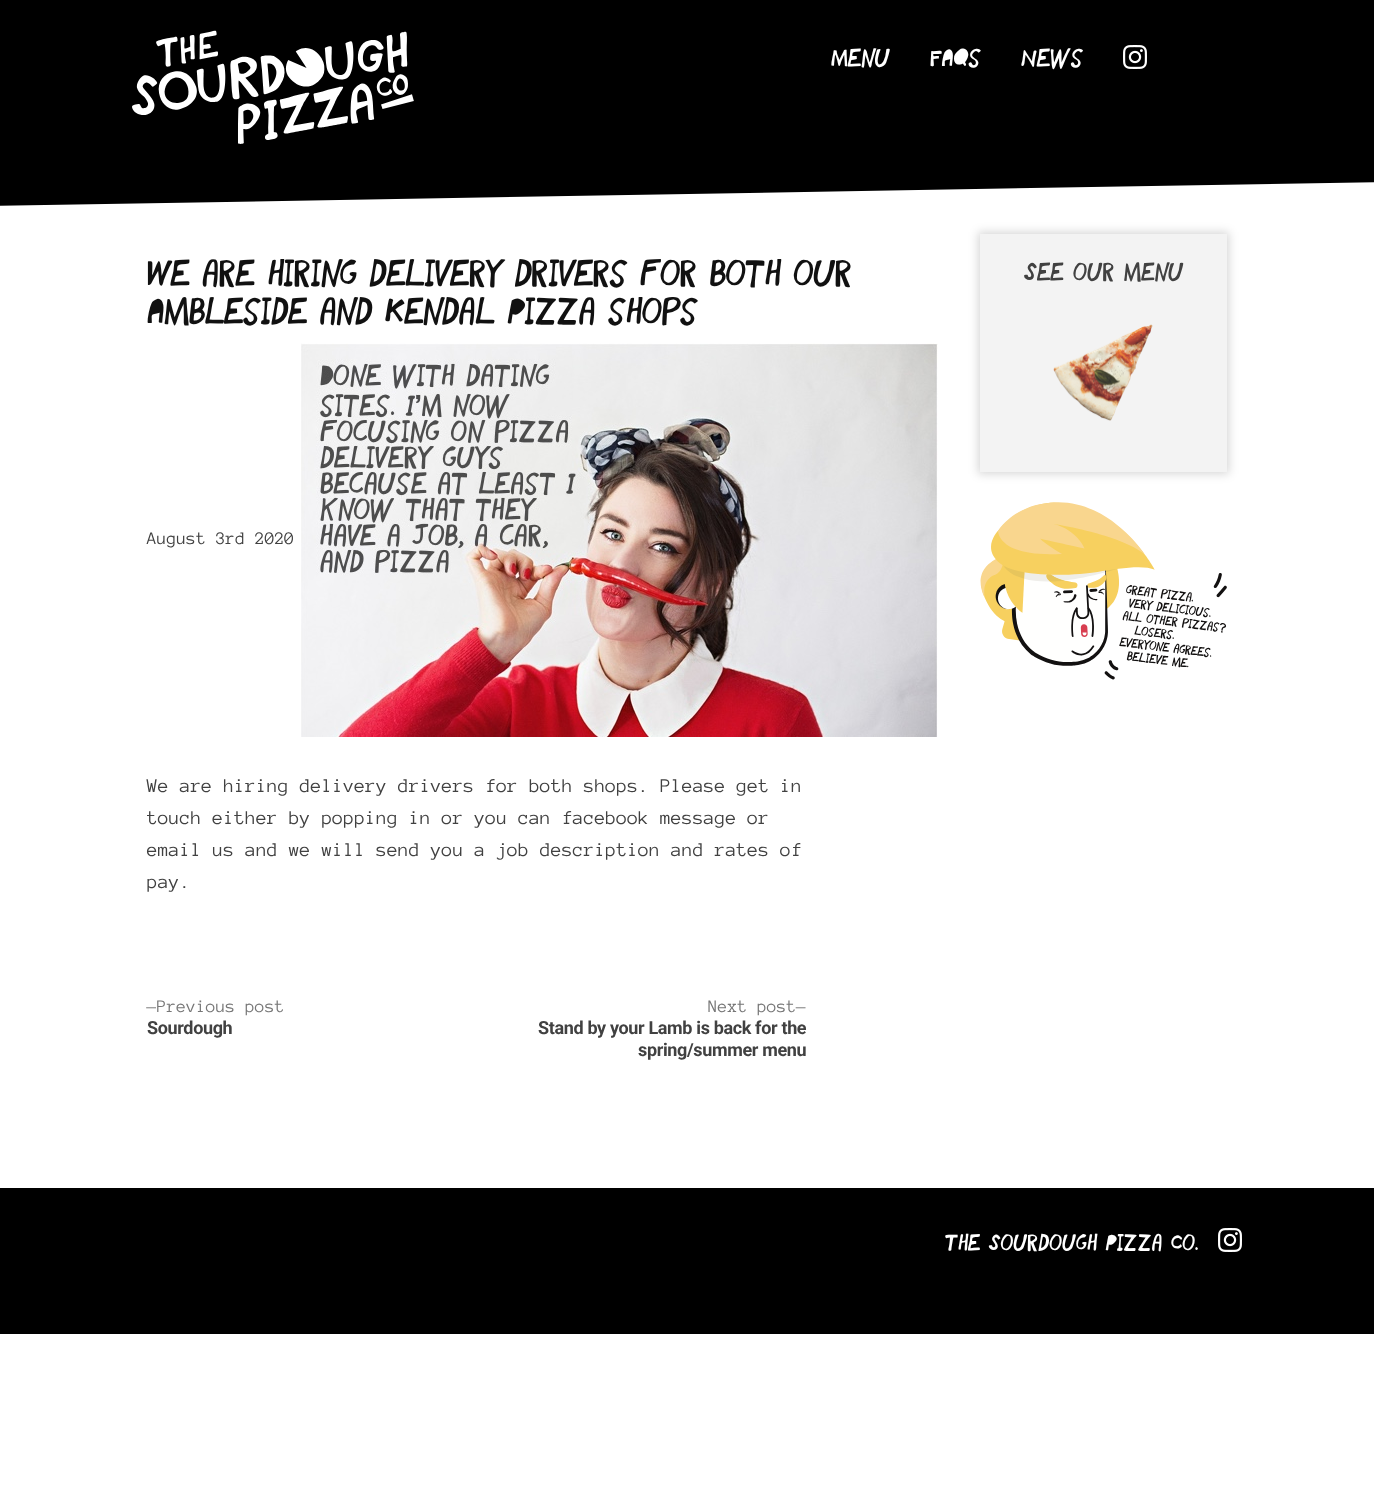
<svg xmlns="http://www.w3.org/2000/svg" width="1374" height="1504">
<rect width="100%" height="100%" fill="#fff"/>
<rect width="1374" height="166" fill="#000"/>
<image x="132" y="30" width="282" height="114" href="media/1.png"/>
<text x="831" y="66" style="font-family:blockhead;font-size:22px;font-weight:500;fill:#fff">Menu</text>
<text x="930" y="66" style="font-family:blockhead;font-size:22px;font-weight:500;fill:#fff">FAQs</text>
<text x="1021" y="66" style="font-family:blockhead;font-size:22px;font-weight:500;fill:#fff">News</text>
<image x="1123" y="45" width="24" height="24" href="media/2.png"/>
<path d="M-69 167l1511-26l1 40l-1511 26z" fill="#000"/>
<text x="147" y="285" style="font-family:blockhead;font-size:32px;font-weight:500;letter-spacing:-0.65px;fill:#111">We are hiring delivery drivers for both our</text>
<text x="147" y="323" style="font-family:blockhead;font-size:32px;font-weight:500;letter-spacing:-0.65px;fill:#111">Ambleside and Kendal Pizza shops</text>
<text x="147" y="544" style="font-family:Anonymous Pro;font-size:18px;fill:#414141">August 3rd 2020</text>
<image x="301" y="343" width="637" height="394" href="media/3.png"/>
<text x="147" y="792" style="font-family:Anonymous Pro;font-size:20px;fill:#414141">We are hiring delivery drivers for both shops. Please get in</text>
<text x="147" y="824" style="font-family:Anonymous Pro;font-size:20px;fill:#414141">touch either by popping in or you can facebook message or</text>
<text x="147" y="856" style="font-family:Anonymous Pro;font-size:20px;fill:#414141">email us and we will send you a job description and rates of</text>
<text x="147" y="888" style="font-family:Anonymous Pro;font-size:20px;fill:#414141">pay.</text>
<text x="147" y="1012" style="font-family:Anonymous Pro;font-size:18px;fill:#767676">—Previous post</text>
<text x="147" y="1034" style="font-family:Roboto;font-size:18px;font-weight:bold;letter-spacing:-0.35px;fill:#414141">Sourdough</text>
<text x="708" y="1012" style="font-family:Anonymous Pro;font-size:18px;fill:#767676">Next post—</text>
<text x="538" y="1034" style="font-family:Roboto;font-size:18px;font-weight:bold;letter-spacing:-0.35px;fill:#414141">Stand by your Lamb is back for the</text>
<text x="638" y="1056" style="font-family:Roboto;font-size:18px;font-weight:bold;letter-spacing:-0.35px;fill:#414141">spring/summer menu</text>
<rect x="978" y="232" width="251" height="242" fill="#00000029" filter="blur(5px)"/>
<rect x="980" y="234" width="247" height="238" fill="#f3f3f3"/>
<text x="1024" y="280" style="font-family:blockhead;font-size:22px;font-weight:500;fill:#414141">See our menu</text>
<image x="1053" y="324" width="100" height="97" href="media/4.png"/>
<image x="980" y="502" width="247" height="178" href="media/5.png"/>
<rect y="1188" width="1374" height="146" fill="#000"/>
<text x="945" y="1250" style="font-family:blockhead;font-size:20px;font-weight:500;fill:#fff">The Sourdough Pizza Co.</text>
<image x="1218" y="1228" width="24" height="24" href="media/2.png"/>
</svg>
